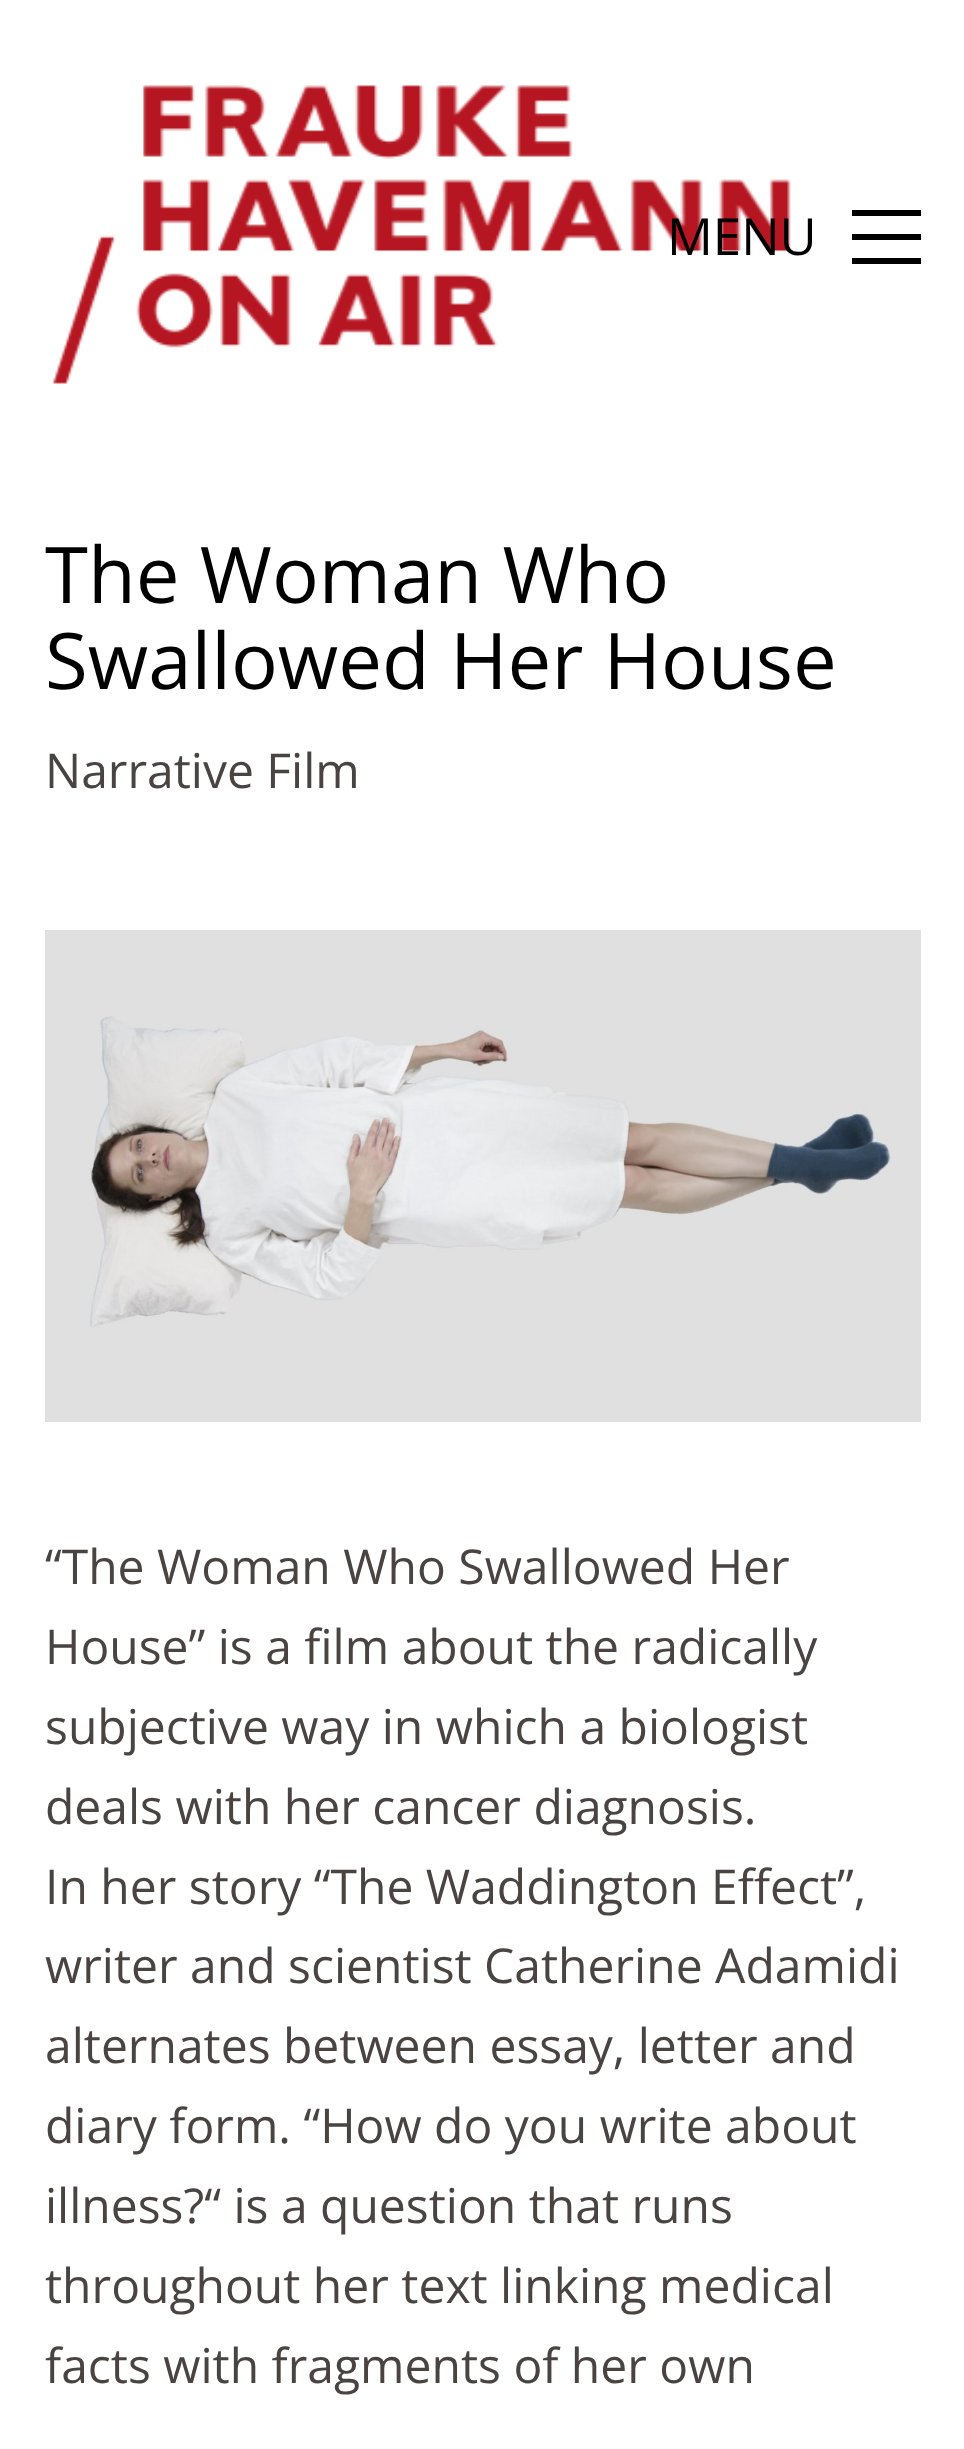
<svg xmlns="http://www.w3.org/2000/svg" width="964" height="2449">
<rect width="100%" height="100%" fill="#fff"/>
<image x="53" y="85" width="738" height="299" href="media/1.png"/>
<text x="667" y="255" style="font-family:Open Sans;font-size:51px;fill:#000">MENU</text>
<rect x="852" y="210" width="69" height="6" fill="#000"/>
<rect x="852" y="234" width="69" height="6" fill="#000"/>
<rect x="852" y="258" width="69" height="6" fill="#000"/>
<text x="45" y="603" style="font-family:Open Sans;font-size:78px;fill:#000">The Woman Who</text>
<text x="45" y="689" style="font-family:Open Sans;font-size:78px;fill:#000">Swallowed Her House</text>
<text x="45" y="788" style="font-family:Open Sans;font-size:48px;fill:#494342">Narrative Film</text>
<image x="45" y="930" width="876" height="492" href="media/2.png"/>
<text x="45" y="1584" style="font-family:Open Sans;font-size:48px;fill:#494342">“The Woman Who Swallowed Her</text>
<text x="45" y="1664" style="font-family:Open Sans;font-size:48px;fill:#494342">House” is a film about the radically</text>
<text x="45" y="1744" style="font-family:Open Sans;font-size:48px;fill:#494342">subjective way in which a biologist</text>
<text x="45" y="1824" style="font-family:Open Sans;font-size:48px;fill:#494342">deals with her cancer diagnosis.</text>
<text x="45" y="1904" style="font-family:Open Sans;font-size:48px;fill:#494342">In her story “The Waddington Effect”,</text>
<text x="45" y="1983" style="font-family:Open Sans;font-size:48px;fill:#494342">writer and scientist Catherine Adamidi</text>
<text x="45" y="2063" style="font-family:Open Sans;font-size:48px;fill:#494342">alternates between essay, letter and</text>
<text x="45" y="2143" style="font-family:Open Sans;font-size:48px;fill:#494342">diary form. “How do you write about</text>
<text x="45" y="2223" style="font-family:Open Sans;font-size:48px;fill:#494342">illness?“ is a question that runs</text>
<text x="45" y="2303" style="font-family:Open Sans;font-size:48px;fill:#494342">throughout her text linking medical</text>
<text x="45" y="2383" style="font-family:Open Sans;font-size:48px;fill:#494342">facts with fragments of her own</text>
</svg>
